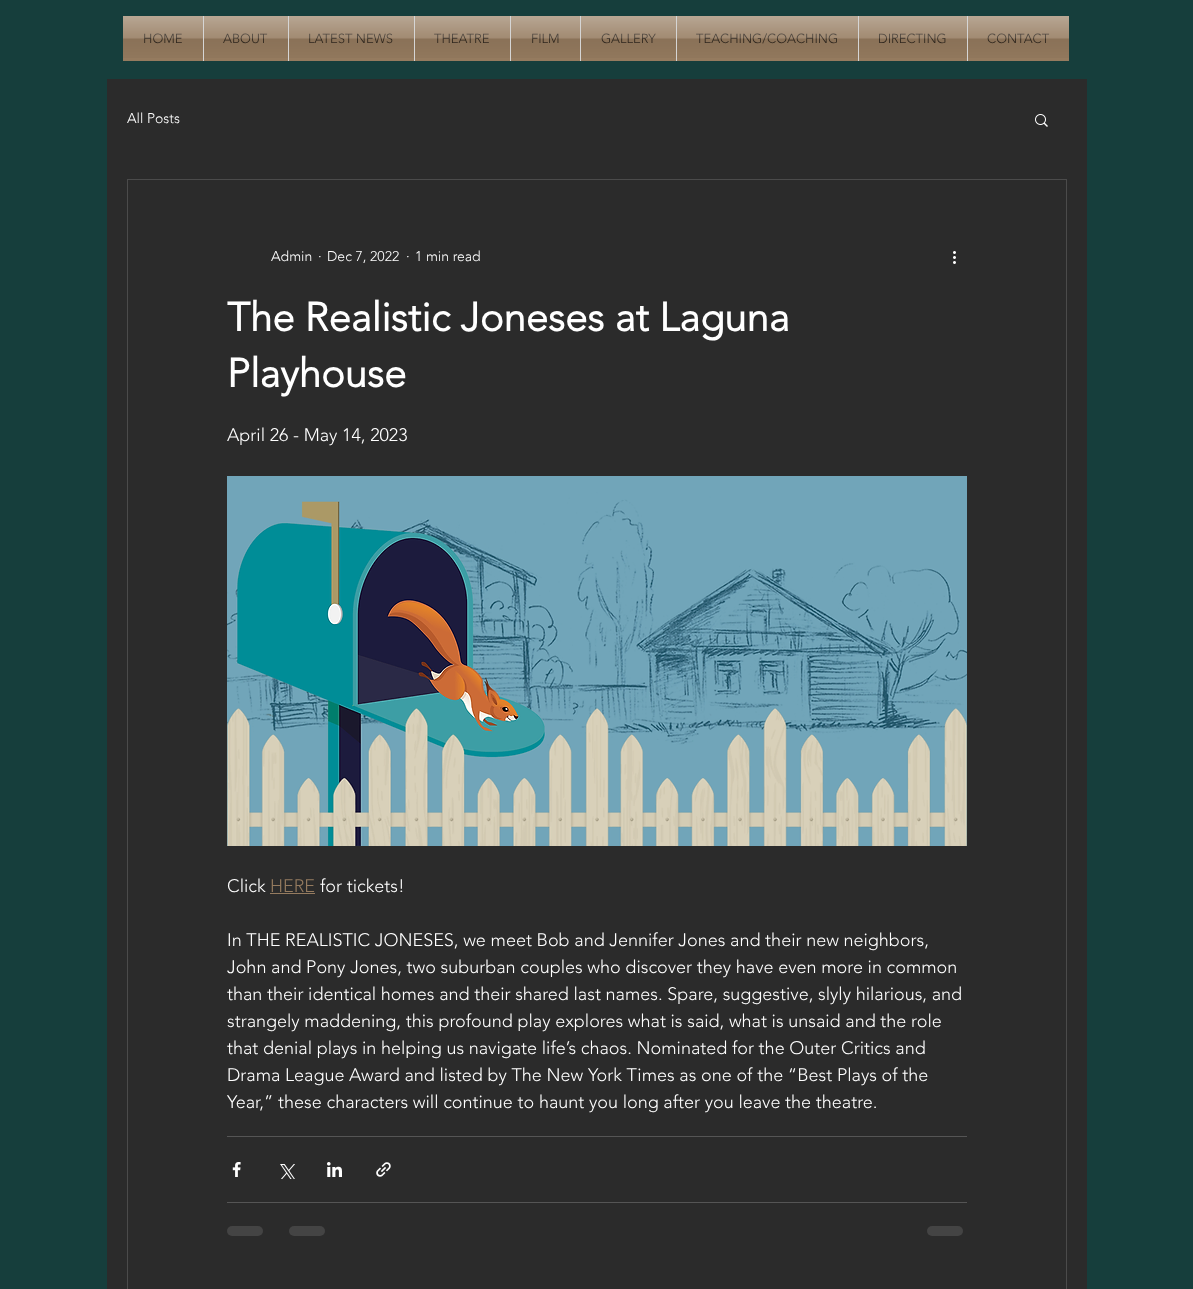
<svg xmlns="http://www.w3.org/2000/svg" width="1193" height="1289">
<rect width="100%" height="100%" fill="#163e3c"/>
<rect x="123" y="16" width="80" height="45" fill="#957b5f"/>
<text x="143" y="43" style="font-family:'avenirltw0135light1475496';font-size:13px;font-weight:300;fill:#322920">HOME</text>
<image x="123" y="16" width="80" height="42" href="media/1.png"/>
<rect x="204" y="16" width="84" height="45" fill="#957b5f"/>
<rect x="203" y="16" width="1" height="45" fill="#d5d5d5"/>
<text x="223" y="43" style="font-family:'avenirltw0135light1475496';font-size:13px;font-weight:300;fill:#322920">ABOUT</text>
<image x="204" y="16" width="84" height="42" href="media/2.png"/>
<rect x="289" y="16" width="125" height="45" fill="#957b5f"/>
<rect x="288" y="16" width="1" height="45" fill="#d5d5d5"/>
<text x="308" y="43" style="font-family:'avenirltw0135light1475496';font-size:13px;font-weight:300;fill:#322920">LATEST NEWS</text>
<image x="289" y="16" width="125" height="42" href="media/3.png"/>
<rect x="415" y="16" width="95" height="45" fill="#957b5f"/>
<rect x="414" y="16" width="1" height="45" fill="#d5d5d5"/>
<text x="434" y="43" style="font-family:'avenirltw0135light1475496';font-size:13px;font-weight:300;fill:#322920">THEATRE</text>
<image x="415" y="16" width="95" height="42" href="media/4.png"/>
<rect x="511" y="16" width="69" height="45" fill="#957b5f"/>
<rect x="510" y="16" width="1" height="45" fill="#d5d5d5"/>
<text x="531" y="43" style="font-family:'avenirltw0135light1475496';font-size:13px;font-weight:300;fill:#322920">FILM</text>
<image x="511" y="16" width="69" height="42" href="media/5.png"/>
<rect x="581" y="16" width="95" height="45" fill="#957b5f"/>
<rect x="580" y="16" width="1" height="45" fill="#d5d5d5"/>
<text x="601" y="43" style="font-family:'avenirltw0135light1475496';font-size:13px;font-weight:300;fill:#322920">GALLERY</text>
<image x="581" y="16" width="95" height="42" href="media/6.png"/>
<rect x="677" y="16" width="181" height="45" fill="#957b5f"/>
<rect x="676" y="16" width="1" height="45" fill="#d5d5d5"/>
<text x="696" y="43" style="font-family:'avenirltw0135light1475496';font-size:13px;font-weight:300;fill:#322920">TEACHING/COACHING</text>
<image x="677" y="16" width="181" height="42" href="media/7.png"/>
<rect x="859" y="16" width="108" height="45" fill="#957b5f"/>
<rect x="858" y="16" width="1" height="45" fill="#d5d5d5"/>
<text x="878" y="43" style="font-family:'avenirltw0135light1475496';font-size:13px;font-weight:300;fill:#322920">DIRECTING</text>
<image x="859" y="16" width="108" height="42" href="media/8.png"/>
<rect x="968" y="16" width="101" height="45" fill="#957b5f"/>
<rect x="967" y="16" width="1" height="45" fill="#d5d5d5"/>
<text x="987" y="43" style="font-family:'avenirltw0135light1475496';font-size:13px;font-weight:300;fill:#322920">CONTACT</text>
<image x="968" y="16" width="101" height="42" href="media/9.png"/>
<rect x="107" y="79" width="980" height="1210" fill="#2b2b2b"/>
<text x="127" y="123" style="font-family:'avenirltw0135light1475496';font-size:14px;font-weight:300;fill:#fff">All Posts</text>
<image x="1035" y="114" width="13" height="13" href="media/10.png"/>
<rect x="127.5" y="179.5" width="939" height="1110" fill="none" stroke="#4b4b4b"/>
<text x="271" y="261" style="font-family:'avenirltw0135light1475496';font-size:14px;font-weight:300;fill:#fff">Admin</text>
<text x="318" y="261" style="font-family:'avenirltw0135light1475496';font-size:14px;font-weight:300;fill:#fff">·</text>
<text x="327" y="261" style="font-family:'avenirltw0135light1475496';font-size:14px;font-weight:300;fill:#fff">Dec 7, 2022</text>
<text x="406" y="261" style="font-family:'avenirltw0135light1475496';font-size:14px;font-weight:300;fill:#fff">·</text>
<text x="415" y="261" style="font-family:'avenirltw0135light1475496';font-size:14px;font-weight:300;fill:#fff">1 min read</text>
<image x="953" y="251" width="3" height="13" href="media/11.png"/>
<text x="227" y="331" style="font-family:'avenirltw0135light1475496';font-size:40px;font-weight:bold;fill:#fff">The Realistic Joneses at Laguna</text>
<text x="227" y="387" style="font-family:'avenirltw0135light1475496';font-size:40px;font-weight:bold;fill:#fff">Playhouse</text>
<text x="227" y="441" style="font-family:'avenirltw0135light1475496';font-size:18px;font-weight:300;fill:#fff">April 26 - May 14, 2023</text>
<image x="227" y="476" width="740" height="370" href="media/12.png"/>
<text x="227" y="892" style="font-family:'avenirltw0135light1475496';font-size:18px;font-weight:300;fill:#fff">Click</text>
<text x="270" y="892" style="font-family:'avenirltw0135light1475496';font-size:18px;font-weight:300;fill:#957b5f">HERE</text>
<rect x="270" y="893" width="45" height="1" fill="#957b5f"/>
<text x="320" y="892" style="font-family:'avenirltw0135light1475496';font-size:18px;font-weight:300;fill:#fff">for tickets!</text>
<text x="227" y="946" style="font-family:'avenirltw0135light1475496';font-size:18px;font-weight:300;fill:#fff">In THE REALISTIC JONESES, we meet Bob and Jennifer Jones and their new neighbors,</text>
<text x="227" y="973" style="font-family:'avenirltw0135light1475496';font-size:18px;font-weight:300;fill:#fff">John and Pony Jones, two suburban couples who discover they have even more in common</text>
<text x="227" y="1000" style="font-family:'avenirltw0135light1475496';font-size:18px;font-weight:300;fill:#fff">than their identical homes and their shared last names. Spare, suggestive, slyly hilarious, and</text>
<text x="227" y="1027" style="font-family:'avenirltw0135light1475496';font-size:18px;font-weight:300;fill:#fff">strangely maddening, this profound play explores what is said, what is unsaid and the role</text>
<text x="227" y="1054" style="font-family:'avenirltw0135light1475496';font-size:18px;font-weight:300;fill:#fff">that denial plays in helping us navigate life’s chaos. Nominated for the Outer Critics and</text>
<text x="227" y="1081" style="font-family:'avenirltw0135light1475496';font-size:18px;font-weight:300;fill:#fff">Drama League Award and listed by The New York Times as one of the “Best Plays of the</text>
<text x="227" y="1108" style="font-family:'avenirltw0135light1475496';font-size:18px;font-weight:300;fill:#fff">Year,” these characters will continue to haunt you long after you leave the theatre.</text>
<rect x="227" y="1136" width="740" height="1" fill="#555"/>
<image x="232" y="1162" width="9" height="15" href="media/13.png"/>
<image x="280" y="1164" width="15" height="15" href="media/14.png"/>
<image x="327" y="1162" width="15" height="15" href="media/15.png"/>
<image x="376" y="1162" width="15" height="15" href="media/16.png"/>
<rect x="227" y="1202" width="740" height="1" fill="#555"/>
<rect x="227" y="1226" width="36" height="10" rx="5" fill="#444"/>
<rect x="289" y="1226" width="36" height="10" rx="5" fill="#444"/>
<rect x="927" y="1226" width="36" height="10" rx="5" fill="#444"/>
</svg>
